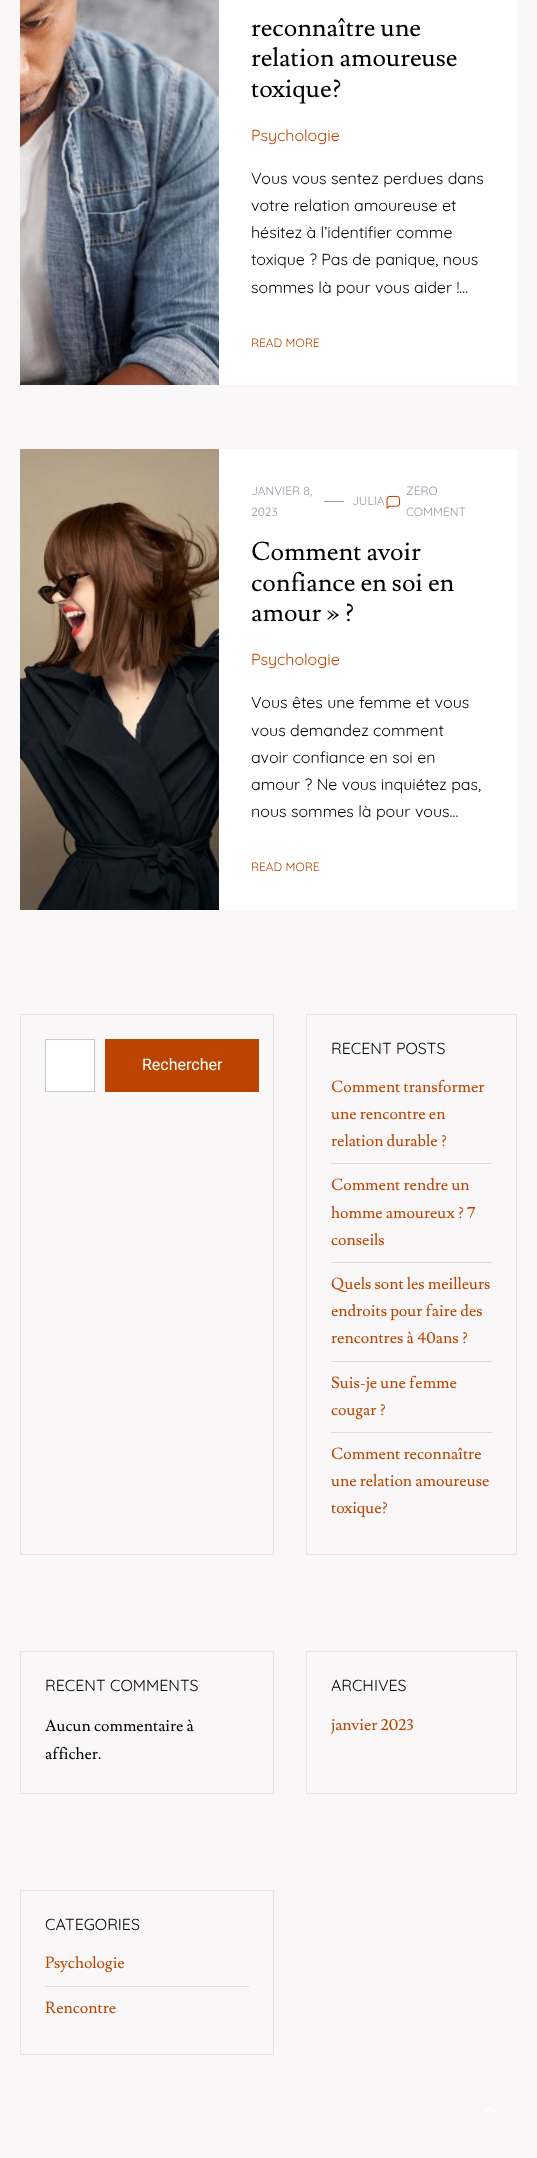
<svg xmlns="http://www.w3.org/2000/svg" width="537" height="2158">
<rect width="100%" height="100%" fill="#f9f7f7"/>
<rect x="219" width="298" height="385" fill="#fff"/>
<image x="20" y="0" width="199" height="385" href="media/1.png"/>
<text x="251" y="36" style="font-family:Lusitana;font-size:25.5px;fill:#000">reconnaître une</text>
<text x="251" y="66" style="font-family:Lusitana;font-size:25.5px;fill:#000">relation amoureuse</text>
<text x="251" y="97" style="font-family:Lusitana;font-size:25.5px;fill:#000">toxique?</text>
<text x="251" y="141" style="font-family:Quicksand;font-size:16px;font-weight:300;fill:#ba4400">Psychologie</text>
<text x="251" y="184" style="font-family:Quicksand;font-size:16px;font-weight:300;fill:#000">Vous vous sentez perdues dans</text>
<text x="251" y="211" style="font-family:Quicksand;font-size:16px;font-weight:300;fill:#000">votre relation amoureuse et</text>
<text x="251" y="238" style="font-family:Quicksand;font-size:16px;font-weight:300;fill:#000">hésitez à l’identifier comme</text>
<text x="251" y="265" style="font-family:Quicksand;font-size:16px;font-weight:300;fill:#000">toxique ? Pas de panique, nous</text>
<text x="251" y="293" style="font-family:Quicksand;font-size:16px;font-weight:300;fill:#000">sommes là pour vous aider !…</text>
<text x="251" y="347" style="font-family:Quicksand;font-size:12px;font-weight:300;fill:#ba4400">READ MORE</text>
<rect x="219" y="449" width="298" height="461" fill="#fff"/>
<image x="20" y="449" width="199" height="461" href="media/2.png"/>
<text x="251" y="495" style="font-family:Quicksand;font-size:12px;font-weight:300;fill:#969aa5">JANVIER 8,</text>
<text x="251" y="516" style="font-family:Quicksand;font-size:12px;font-weight:300;fill:#969aa5">2023</text>
<rect x="324" y="501" width="20" height="1" fill="#969aa5"/>
<text x="352" y="505" style="font-family:Quicksand;font-size:12px;font-weight:300;fill:#969aa5">JULIA</text>
<image x="386" y="495" width="15" height="14" href="media/3.png"/>
<text x="406" y="495" style="font-family:Quicksand;font-size:12px;font-weight:300;fill:#969aa5">ZERO</text>
<text x="406" y="516" style="font-family:Quicksand;font-size:12px;font-weight:300;fill:#969aa5">COMMENT</text>
<text x="251" y="560" style="font-family:Lusitana;font-size:25.5px;fill:#000">Comment avoir</text>
<text x="251" y="591" style="font-family:Lusitana;font-size:25.5px;fill:#000">confiance en soi en</text>
<text x="251" y="621" style="font-family:Lusitana;font-size:25.5px;fill:#000">amour » ?</text>
<text x="251" y="665" style="font-family:Quicksand;font-size:16px;font-weight:300;fill:#ba4400">Psychologie</text>
<text x="251" y="708" style="font-family:Quicksand;font-size:16px;font-weight:300;fill:#000">Vous êtes une femme et vous</text>
<text x="251" y="736" style="font-family:Quicksand;font-size:16px;font-weight:300;fill:#000">vous demandez comment</text>
<text x="251" y="763" style="font-family:Quicksand;font-size:16px;font-weight:300;fill:#000">avoir confiance en soi en</text>
<text x="251" y="790" style="font-family:Quicksand;font-size:16px;font-weight:300;fill:#000">amour ? Ne vous inquiétez pas,</text>
<text x="251" y="817" style="font-family:Quicksand;font-size:16px;font-weight:300;fill:#000">nous sommes là pour vous…</text>
<text x="251" y="871" style="font-family:Quicksand;font-size:12px;font-weight:300;fill:#ba4400">READ MORE</text>
<rect x="20.5" y="1014.5" width="253" height="540" fill="none" stroke="#e5e3e3"/>
<rect x="45.5" y="1039.5" width="49" height="52" fill="#fff" stroke="#ccc"/>
<rect x="105" y="1039" width="154" height="53" fill="#ba4400"/>
<text x="142" y="1070" style="font-family:Roboto;font-size:16px;fill:#fff">Rechercher</text>
<rect x="306.5" y="1014.5" width="210" height="540" fill="none" stroke="#e5e3e3"/>
<text x="331" y="1054" style="font-family:Quicksand;font-size:16px;font-weight:300;fill:#000">RECENT POSTS</text>
<rect x="331" y="1163" width="161" height="1" fill="#dedcdc"/>
<text x="331" y="1092" style="font-family:Lusitana;font-size:16px;fill:#ba4400">Comment transformer</text>
<text x="331" y="1119" style="font-family:Lusitana;font-size:16px;fill:#ba4400">une rencontre en</text>
<text x="331" y="1146" style="font-family:Lusitana;font-size:16px;fill:#ba4400">relation durable ?</text>
<rect x="331" y="1262" width="161" height="1" fill="#dedcdc"/>
<text x="331" y="1190" style="font-family:Lusitana;font-size:16px;fill:#ba4400">Comment rendre un</text>
<text x="331" y="1218" style="font-family:Lusitana;font-size:16px;fill:#ba4400">homme amoureux ? 7</text>
<text x="331" y="1245" style="font-family:Lusitana;font-size:16px;fill:#ba4400">conseils</text>
<rect x="331" y="1361" width="161" height="1" fill="#dedcdc"/>
<text x="331" y="1289" style="font-family:Lusitana;font-size:16px;fill:#ba4400">Quels sont les meilleurs</text>
<text x="331" y="1316" style="font-family:Lusitana;font-size:16px;fill:#ba4400">endroits pour faire des</text>
<text x="331" y="1343" style="font-family:Lusitana;font-size:16px;fill:#ba4400">rencontres à 40ans ?</text>
<rect x="331" y="1432" width="161" height="1" fill="#dedcdc"/>
<text x="331" y="1388" style="font-family:Lusitana;font-size:16px;fill:#ba4400">Suis-je une femme</text>
<text x="331" y="1415" style="font-family:Lusitana;font-size:16px;fill:#ba4400">cougar ?</text>
<text x="331" y="1459" style="font-family:Lusitana;font-size:16px;fill:#ba4400">Comment reconnaître</text>
<text x="331" y="1486" style="font-family:Lusitana;font-size:16px;fill:#ba4400">une relation amoureuse</text>
<text x="331" y="1513" style="font-family:Lusitana;font-size:16px;fill:#ba4400">toxique?</text>
<rect x="20.5" y="1651.5" width="253" height="142" fill="none" stroke="#e5e3e3"/>
<text x="45" y="1691" style="font-family:Quicksand;font-size:16px;font-weight:300;fill:#000">RECENT COMMENTS</text>
<text x="45" y="1731" style="font-family:Lusitana;font-size:16px;fill:#000">Aucun commentaire à</text>
<text x="45" y="1759" style="font-family:Lusitana;font-size:16px;fill:#000">afficher.</text>
<rect x="306.5" y="1651.5" width="210" height="142" fill="none" stroke="#e5e3e3"/>
<text x="331" y="1691" style="font-family:Quicksand;font-size:16px;font-weight:300;fill:#000">ARCHIVES</text>
<text x="331" y="1730" style="font-family:Lusitana;font-size:16px;fill:#ba4400">janvier 2023</text>
<rect x="20.5" y="1890.5" width="253" height="164" fill="none" stroke="#e5e3e3"/>
<text x="45" y="1930" style="font-family:Quicksand;font-size:16px;font-weight:300;fill:#000">CATEGORIES</text>
<rect x="45" y="1986" width="204" height="1" fill="#dedcdc"/>
<text x="45" y="1968" style="font-family:Lusitana;font-size:16px;fill:#ba4400">Psychologie</text>
<text x="45" y="2013" style="font-family:Lusitana;font-size:16px;fill:#ba4400">Rencontre</text>
<image x="483" y="2107" width="12" height="7" href="media/4.png"/>
</svg>
